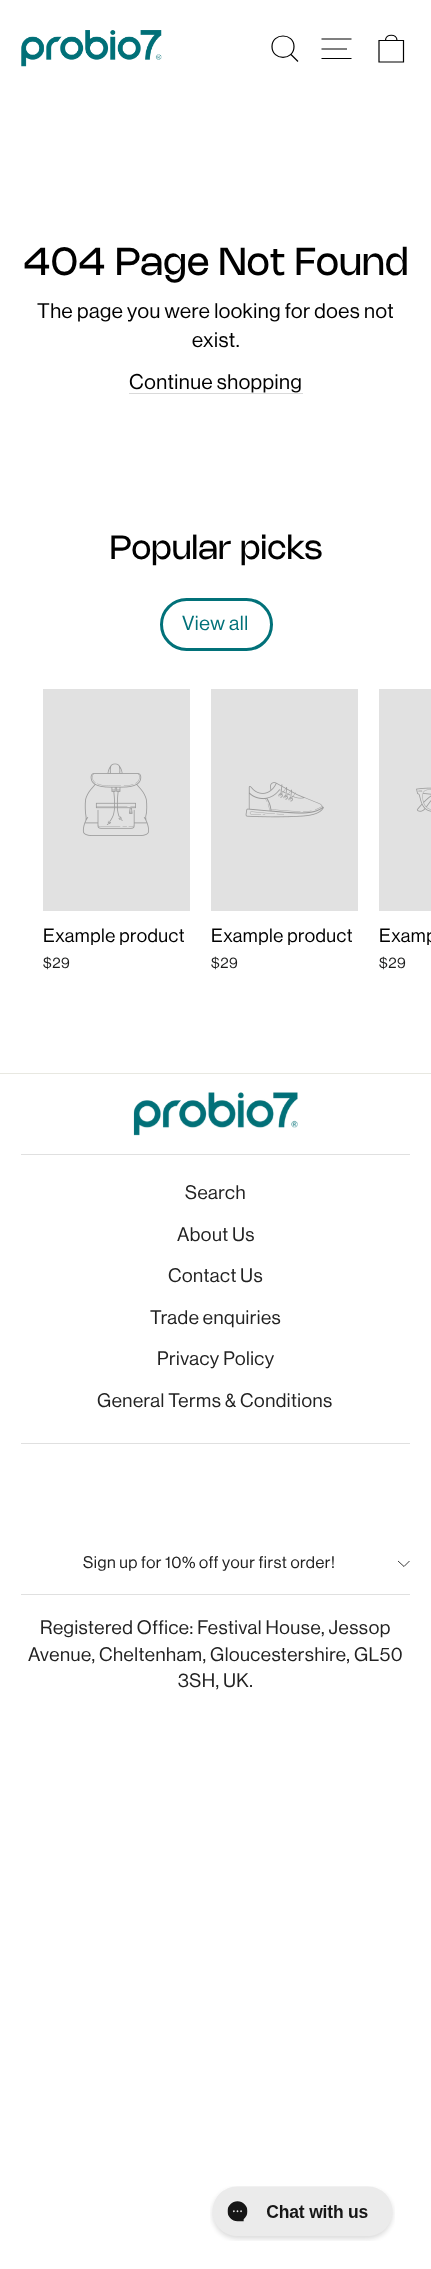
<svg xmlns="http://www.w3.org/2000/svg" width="431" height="2269">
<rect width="100%" height="100%" fill="#fff"/>
<image x="21" y="30" width="141" height="37" href="media/1.png"/>
<path d="M294 46.5c0 14.5-22 14.5-22 0c0-14 22-14 22 0zm4 15l-7-7" fill="none" stroke="#000" stroke-width="1.2"/>
<path d="M321.5 39h30m-30 10h25.5m-25.5 9.5h30" fill="none" stroke="#000" stroke-width="1.2"/>
<path d="M379 40.5h24.5v21.5h-24.5zm6.5 0c0-7 11.5-7 11.5 0" fill="none" stroke="#000" stroke-width="1.2"/>
<text x="23" y="275" style="font-family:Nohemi;font-size:38.25px;letter-spacing:0.5px;fill:#000">404 Page Not Found</text>
<text x="37" y="318" style="font-family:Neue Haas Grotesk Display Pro;font-size:20.75px;letter-spacing:0.5px;fill:#000">The page you were looking for does not</text>
<text x="192" y="347" style="font-family:Neue Haas Grotesk Display Pro;font-size:20.75px;letter-spacing:0.5px;fill:#000">exist.</text>
<text x="129" y="389" style="font-family:Neue Haas Grotesk Display Pro;font-size:20.75px;letter-spacing:0.5px;fill:#000">Continue shopping</text>
<rect x="129" y="393" width="174" height="1" fill="#d9d9d9"/>
<text x="110" y="559" style="font-family:Nohemi;font-size:33px;letter-spacing:0.5px;fill:#000">Popular picks</text>
<rect x="161.5" y="599.5" width="110" height="50" rx="25" fill="none" stroke="#017179" stroke-width="3"/>
<text x="182" y="630" style="font-family:Neue Haas Grotesk Display Pro;font-size:20px;letter-spacing:0.5px;fill:#017179">View all</text>
<rect x="43" y="689" width="147" height="222" fill="#e1e1e1"/>
<image x="82" y="763" width="67" height="73" href="media/2.png"/>
<text x="43" y="942" style="font-family:Neue Haas Grotesk Display Pro;font-size:18.75px;letter-spacing:0.5px;fill:#000">Example product</text>
<text x="43" y="968" style="font-family:Neue Haas Grotesk Display Pro;font-size:15px;letter-spacing:0.5px;fill:#1c1d1d">$29</text>
<rect x="211" y="689" width="147" height="222" fill="#e1e1e1"/>
<image x="245" y="782" width="79" height="36" href="media/3.png"/>
<text x="211" y="942" style="font-family:Neue Haas Grotesk Display Pro;font-size:18.75px;letter-spacing:0.5px;fill:#000">Example product</text>
<text x="211" y="968" style="font-family:Neue Haas Grotesk Display Pro;font-size:15px;letter-spacing:0.5px;fill:#1c1d1d">$29</text>
<rect x="379" y="689" width="52" height="222" fill="#e1e1e1"/>
<image x="416" y="787" width="15" height="25" href="media/4.png"/>
<text x="379" y="942" style="font-family:Neue Haas Grotesk Display Pro;font-size:18.75px;letter-spacing:0.5px;fill:#000">Examp</text>
<text x="379" y="968" style="font-family:Neue Haas Grotesk Display Pro;font-size:15px;letter-spacing:0.5px;fill:#1c1d1d">$29</text>
<rect y="1073" width="431" height="1" fill="#e8e8e1"/>
<image x="133" y="1092" width="165" height="44" href="media/5.png"/>
<rect x="21" y="1154" width="389" height="1" fill="#e0e0e0"/>
<text x="185" y="1199" style="font-family:Neue Haas Grotesk Display Pro;font-size:19.1px;letter-spacing:0.5px;fill:#222">Search</text>
<text x="177" y="1241" style="font-family:Neue Haas Grotesk Display Pro;font-size:19.1px;letter-spacing:0.5px;fill:#222">About Us</text>
<text x="168" y="1282" style="font-family:Neue Haas Grotesk Display Pro;font-size:19.1px;letter-spacing:0.5px;fill:#222">Contact Us</text>
<text x="150" y="1324" style="font-family:Neue Haas Grotesk Display Pro;font-size:19.1px;letter-spacing:0.5px;fill:#222">Trade enquiries</text>
<text x="157" y="1365" style="font-family:Neue Haas Grotesk Display Pro;font-size:19.1px;letter-spacing:0.5px;fill:#222">Privacy Policy</text>
<text x="97" y="1407" style="font-family:Neue Haas Grotesk Display Pro;font-size:19.1px;letter-spacing:0.5px;fill:#222">General Terms &amp; Conditions</text>
<rect x="21" y="1443" width="389" height="1" fill="#e0e0e0"/>
<text x="83" y="1568" style="font-family:Neue Haas Grotesk Display Pro;font-size:16.5px;letter-spacing:0.5px;fill:#222">Sign up for 10% off your first order!</text>
<path d="M398 1561l6 5.5l5.5-5.5" fill="none" stroke="#222" stroke-width="0.9"/>
<rect x="21" y="1594" width="389" height="1" fill="#e0e0e0"/>
<text x="40" y="1634" style="font-family:Neue Haas Grotesk Display Pro;font-size:19.1px;letter-spacing:0.5px;fill:#222">Registered Office: Festival House, Jessop</text>
<text x="28" y="1661" style="font-family:Neue Haas Grotesk Display Pro;font-size:19.1px;letter-spacing:0.5px;fill:#222">Avenue, Cheltenham, Gloucestershire, GL50</text>
<text x="178" y="1687" style="font-family:Neue Haas Grotesk Display Pro;font-size:19.1px;letter-spacing:0.5px;fill:#222">3SH, UK.</text>
<image x="210" y="2186" width="185" height="55" href="media/6.png"/>
</svg>
